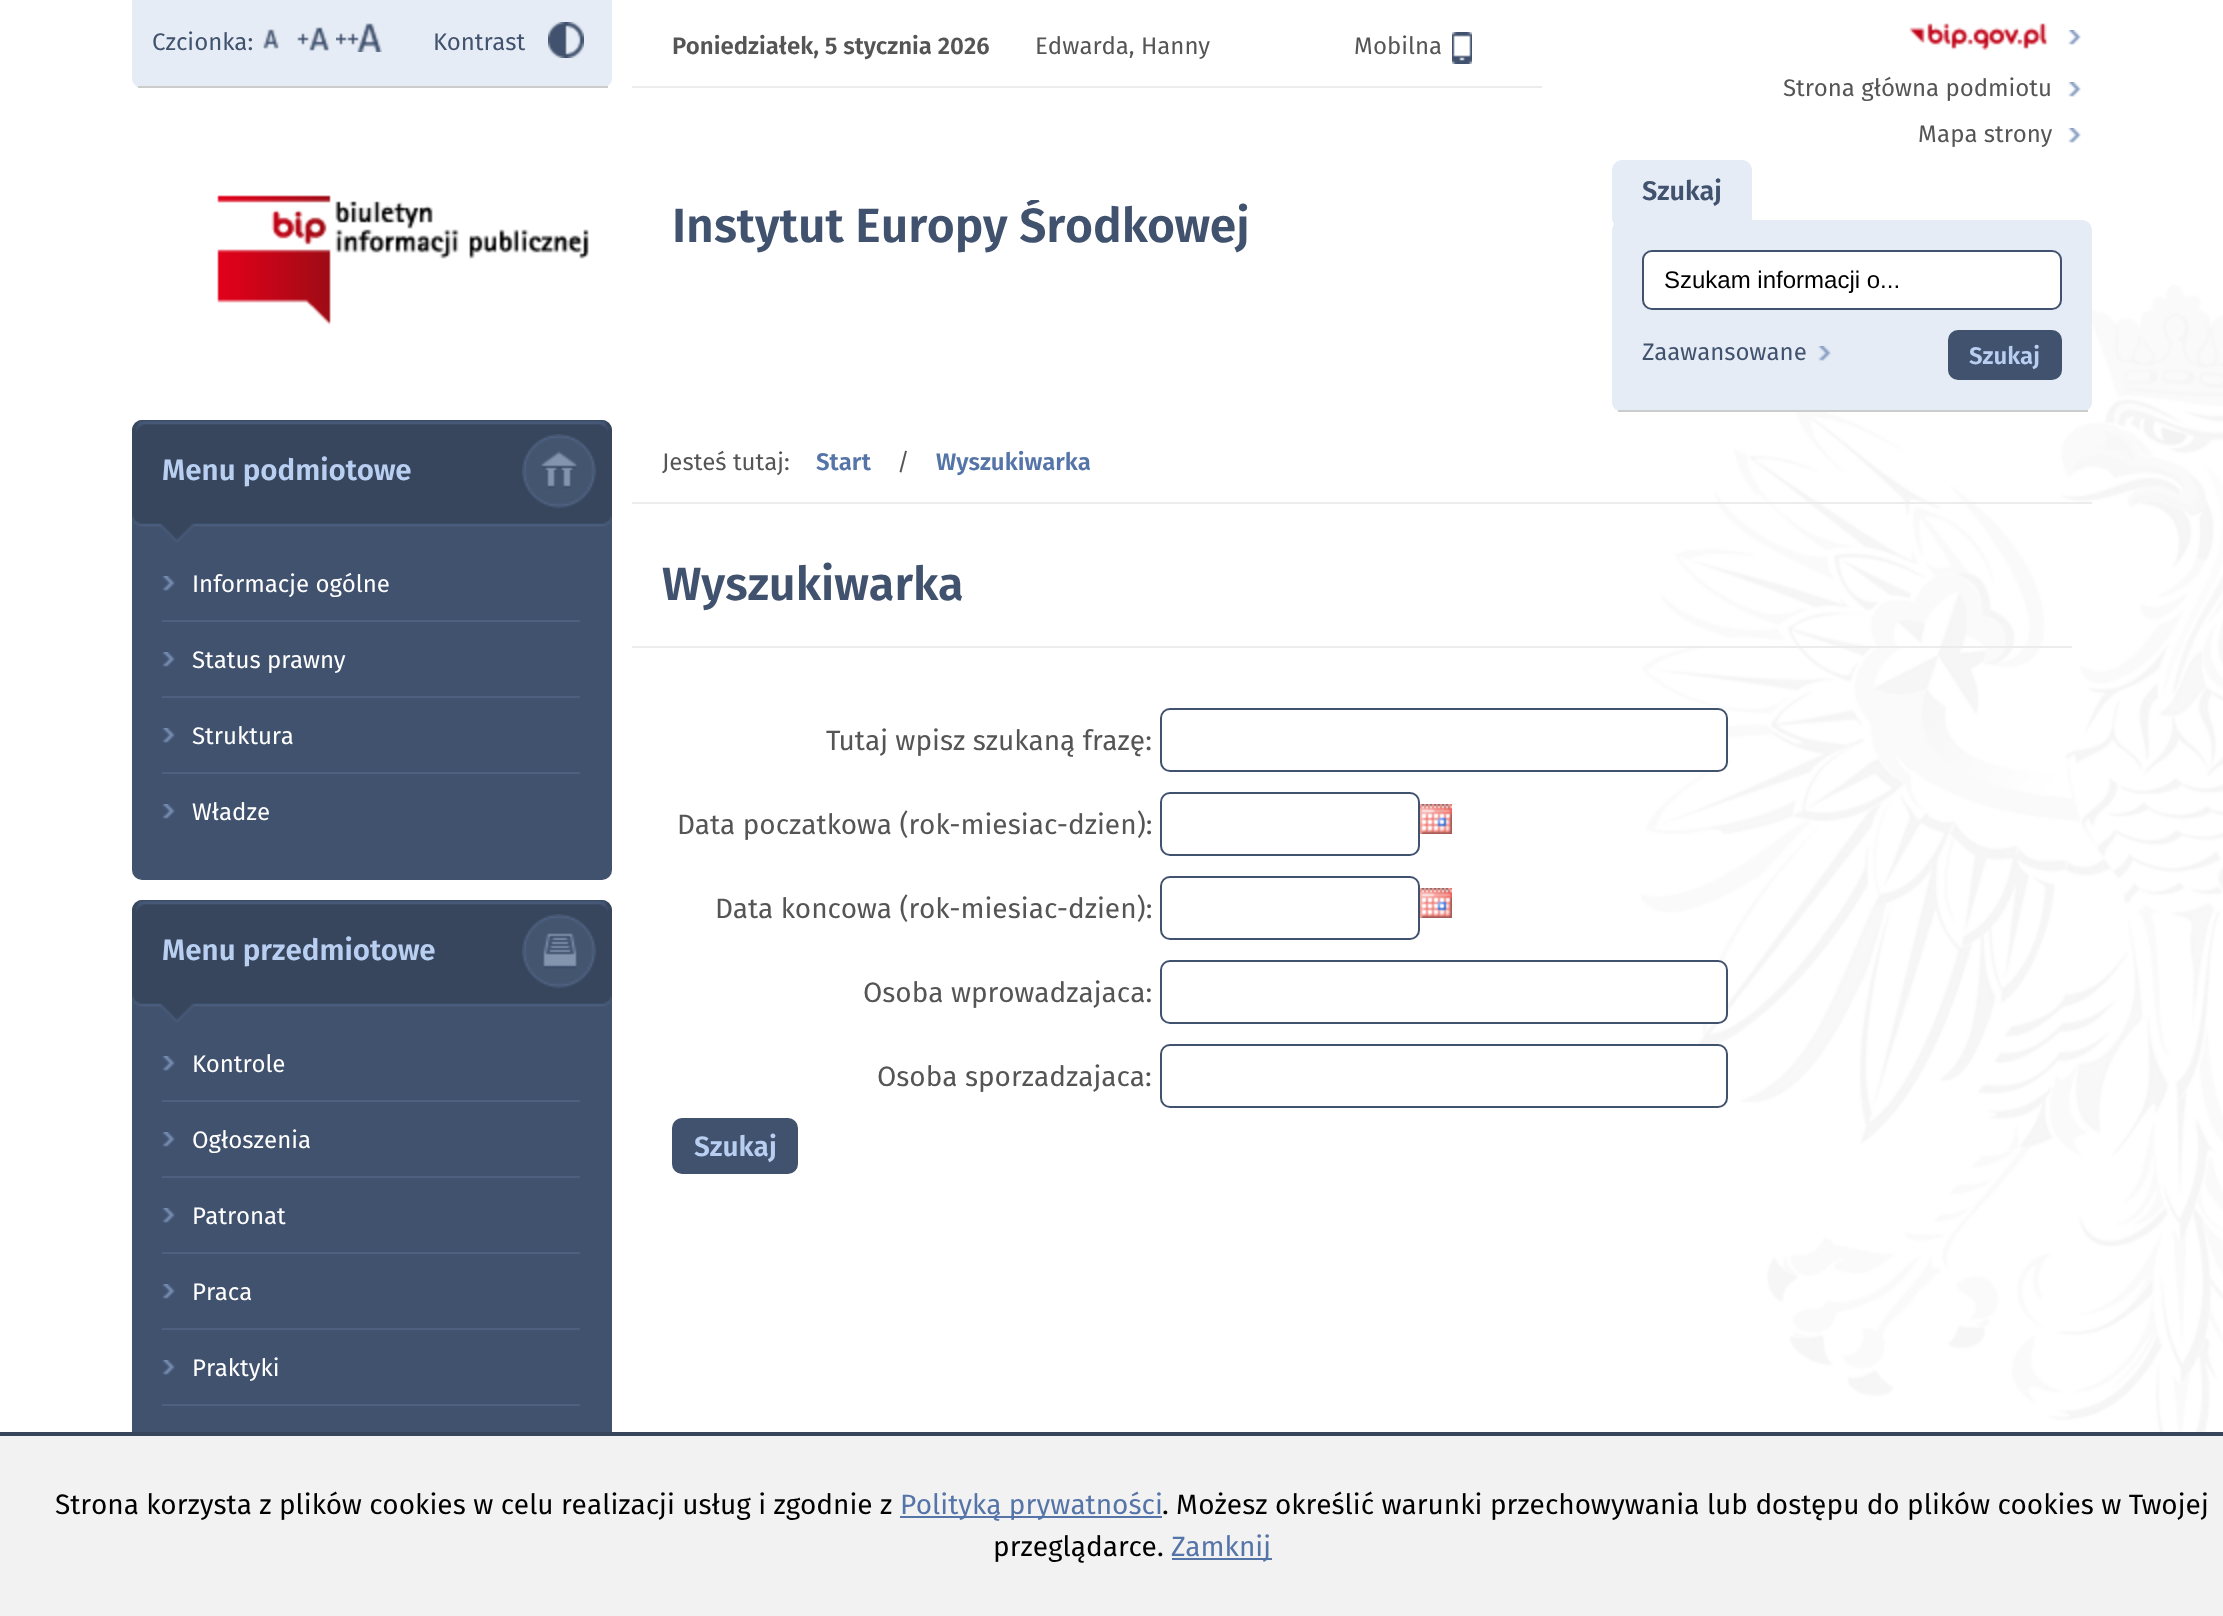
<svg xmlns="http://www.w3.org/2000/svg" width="2223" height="1616">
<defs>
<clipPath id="clip1"><rect x="672" y="200" width="840" height="200"/></clipPath>
</defs>
<rect width="100%" height="100%" fill="#fff"/>
<image x="1641" y="284" width="582" height="1148" href="media/1.png"/>
<path d="M132 0h480v78c0 5.5-4.5 10-10 10h-460c-5.5 0-10-4.5-10-10z" fill="#e6ecf5"/>
<rect x="138" y="86" width="470" height="2" fill="#ccc"/>
<text x="152" y="50" style="font-family:Fira Sans;font-size:24px;fill:#41526e">Czcionka:</text>
<image x="263" y="29" width="16" height="20" href="media/2.png"/>
<image x="297" y="27" width="33" height="24" href="media/3.png"/>
<image x="336" y="23" width="46" height="29" href="media/4.png"/>
<text x="433" y="50" style="font-family:Fira Sans;font-size:24px;fill:#41526e">Kontrast</text>
<image x="548" y="22" width="36" height="36" href="media/5.png"/>
<rect x="632" y="86" width="910" height="2" fill="#ececec"/>
<text x="672" y="54" style="font-family:Fira Sans;font-size:24px;font-weight:600;fill:#555">Poniedziałek, 5 stycznia 2026</text>
<text x="1035" y="54" style="font-family:Fira Sans;font-size:24px;fill:#555">Edwarda, Hanny</text>
<text x="1354" y="54" style="font-family:Fira Sans;font-size:24px;fill:#555">Mobilna</text>
<image x="1452" y="32" width="20" height="32" href="media/6.png"/>
<image x="2068" y="30" width="13" height="15" href="media/7.png"/>
<image x="1909" y="23" width="139" height="27" href="media/8.png"/>
<image x="2068" y="82" width="13" height="15" href="media/7.png"/>
<text x="1783" y="96" style="font-family:Fira Sans;font-size:24px;fill:#555">Strona główna podmiotu</text>
<image x="2068" y="128" width="13" height="15" href="media/7.png"/>
<text x="1918" y="142" style="font-family:Fira Sans;font-size:24px;fill:#555">Mapa strony</text>
<image x="217" y="195" width="372" height="130" href="media/9.png"/>
<g clip-path="url(#clip1)">
<text x="672" y="242" style="font-family:Fira Sans;font-size:48px;font-weight:600;fill:#41526e">Instytut Europy Środkowej</text>
</g>
<rect x="1612" y="220" width="480" height="192" rx="10" fill="#e6ecf5"/>
<rect x="1618" y="410" width="470" height="2" fill="#ccc"/>
<rect x="1612" y="160" width="140" height="68" rx="10" fill="#e6ecf5"/>
<text x="1642" y="200" style="font-family:Fira Sans;font-size:27px;font-weight:600;fill:#41526e">Szukaj</text>
<rect x="1643" y="251" width="418" height="58" rx="9" fill="#fff" stroke="#41526e" stroke-width="2"/>
<text x="1664" y="288" style="font-family:Liberation Sans;font-size:24px;fill:#000">Szukam informacji o...</text>
<text x="1642" y="360" style="font-family:Fira Sans;font-size:24px;fill:#41526e">Zaawansowane</text>
<image x="1818" y="346" width="13" height="15" href="media/10.png"/>
<rect x="1949" y="331" width="112" height="48" rx="9" fill="#41526e" stroke="#41526e" stroke-width="2"/>
<text x="1969" y="364" style="font-family:Fira Sans;font-size:24px;font-weight:600;fill:#b9cff2">Szukaj</text>
<rect x="132" y="420" width="480" height="460" rx="10" fill="#41526e"/>
<image x="132" y="420" width="480" height="14" href="media/11.png"/>
<rect x="132" y="434" width="480" height="78" fill="#37465d"/>
<image x="522" y="434" width="74" height="74" href="media/12.png"/>
<text x="162" y="480" style="font-family:Fira Sans;font-size:29.5px;font-weight:600;fill:#b9cff2">Menu podmiotowe</text>
<image x="132" y="512" width="480" height="30" href="media/13.png"/>
<image x="162" y="620" width="418" height="2" href="media/14.png"/>
<image x="162" y="576" width="13" height="15" href="media/15.png"/>
<text x="192" y="592" style="font-family:Fira Sans;font-size:24px;fill:#fff">Informacje ogólne</text>
<image x="162" y="696" width="418" height="2" href="media/14.png"/>
<image x="162" y="652" width="13" height="15" href="media/15.png"/>
<text x="192" y="668" style="font-family:Fira Sans;font-size:24px;fill:#fff">Status prawny</text>
<image x="162" y="772" width="418" height="2" href="media/14.png"/>
<image x="162" y="728" width="13" height="15" href="media/15.png"/>
<text x="192" y="744" style="font-family:Fira Sans;font-size:24px;fill:#fff">Struktura</text>
<image x="162" y="804" width="13" height="15" href="media/15.png"/>
<text x="192" y="820" style="font-family:Fira Sans;font-size:24px;fill:#fff">Władze</text>
<rect x="132" y="900" width="480" height="612" rx="10" fill="#41526e"/>
<image x="132" y="900" width="480" height="14" href="media/11.png"/>
<rect x="132" y="914" width="480" height="78" fill="#37465d"/>
<image x="522" y="914" width="74" height="74" href="media/16.png"/>
<text x="162" y="960" style="font-family:Fira Sans;font-size:29.5px;font-weight:600;fill:#b9cff2">Menu przedmiotowe</text>
<image x="132" y="992" width="480" height="30" href="media/13.png"/>
<image x="162" y="1100" width="418" height="2" href="media/14.png"/>
<image x="162" y="1056" width="13" height="15" href="media/15.png"/>
<text x="192" y="1072" style="font-family:Fira Sans;font-size:24px;fill:#fff">Kontrole</text>
<image x="162" y="1176" width="418" height="2" href="media/14.png"/>
<image x="162" y="1132" width="13" height="15" href="media/15.png"/>
<text x="192" y="1148" style="font-family:Fira Sans;font-size:24px;fill:#fff">Ogłoszenia</text>
<image x="162" y="1252" width="418" height="2" href="media/14.png"/>
<image x="162" y="1208" width="13" height="15" href="media/15.png"/>
<text x="192" y="1224" style="font-family:Fira Sans;font-size:24px;fill:#fff">Patronat</text>
<image x="162" y="1328" width="418" height="2" href="media/14.png"/>
<image x="162" y="1284" width="13" height="15" href="media/15.png"/>
<text x="192" y="1300" style="font-family:Fira Sans;font-size:24px;fill:#fff">Praca</text>
<image x="162" y="1404" width="418" height="2" href="media/14.png"/>
<image x="162" y="1360" width="13" height="15" href="media/15.png"/>
<text x="192" y="1376" style="font-family:Fira Sans;font-size:24px;fill:#fff">Praktyki</text>
<rect x="632" y="502" width="1460" height="2" fill="#ececec"/>
<text x="662" y="470" style="font-family:Fira Sans;font-size:24px;fill:#555">Jesteś tutaj:</text>
<text x="816" y="470" style="font-family:Fira Sans;font-size:24px;font-weight:600;fill:#5574a8">Start</text>
<text x="897" y="470" style="font-family:Fira Sans;font-size:24px;fill:#555">/</text>
<text x="936" y="470" style="font-family:Fira Sans;font-size:24px;font-weight:600;fill:#5574a8">Wyszukiwarka</text>
<rect x="632" y="646" width="1440" height="2" fill="#ececec"/>
<text x="662" y="600" style="font-family:Fira Sans;font-size:46.75px;font-weight:600;fill:#41526e">Wyszukiwarka</text>
<text x="826" y="750" style="font-family:Fira Sans;font-size:28px;fill:#555">Tutaj wpisz szukaną frazę:</text>
<rect x="1161" y="709" width="566" height="62" rx="9" fill="#fff" stroke="#41526e" stroke-width="2"/>
<text x="677" y="834" style="font-family:Fira Sans;font-size:28px;fill:#555">Data poczatkowa (rok-miesiac-dzien):</text>
<rect x="1161" y="793" width="258" height="62" rx="9" fill="none" stroke="#41526e" stroke-width="2"/>
<image x="1420" y="804" width="32" height="30" href="media/17.png"/>
<text x="715" y="918" style="font-family:Fira Sans;font-size:28px;fill:#555">Data koncowa (rok-miesiac-dzien):</text>
<rect x="1161" y="877" width="258" height="62" rx="9" fill="none" stroke="#41526e" stroke-width="2"/>
<image x="1420" y="888" width="32" height="30" href="media/17.png"/>
<text x="863" y="1002" style="font-family:Fira Sans;font-size:28px;fill:#555">Osoba wprowadzajaca:</text>
<rect x="1161" y="961" width="566" height="62" rx="9" fill="#fff" stroke="#41526e" stroke-width="2"/>
<text x="877" y="1086" style="font-family:Fira Sans;font-size:28px;fill:#555">Osoba sporzadzajaca:</text>
<rect x="1161" y="1045" width="566" height="62" rx="9" fill="#fff" stroke="#41526e" stroke-width="2"/>
<rect x="673" y="1119" width="124" height="54" rx="9" fill="#41526e" stroke="#41526e" stroke-width="2"/>
<text x="694" y="1156" style="font-family:Fira Sans;font-size:28px;font-weight:600;fill:#b9cff2">Szukaj</text>
<rect y="1436" width="2223" height="180" fill="#f2f2f2"/>
<rect y="1432" width="2223" height="4" fill="#37465d"/>
<text x="55" y="1514" style="font-family:Fira Sans;font-size:28px;fill:#000">Strona korzysta z plików cookies w celu realizacji usług i zgodnie z</text>
<rect x="900" y="1516" width="262" height="2" fill="#5574a8"/>
<text x="900" y="1514" style="font-family:Fira Sans;font-size:28px;fill:#5574a8">Polityką prywatności</text>
<text x="1162" y="1514" style="font-family:Fira Sans;font-size:28px;fill:#000">. Możesz określić warunki przechowywania lub dostępu do plików cookies w Twojej</text>
<text x="993" y="1556" style="font-family:Fira Sans;font-size:28px;fill:#000">przeglądarce.</text>
<rect x="1172" y="1558" width="100" height="2" fill="#5574a8"/>
<text x="1171" y="1556" style="font-family:Fira Sans;font-size:28px;fill:#5574a8">Zamknij</text>
</svg>
